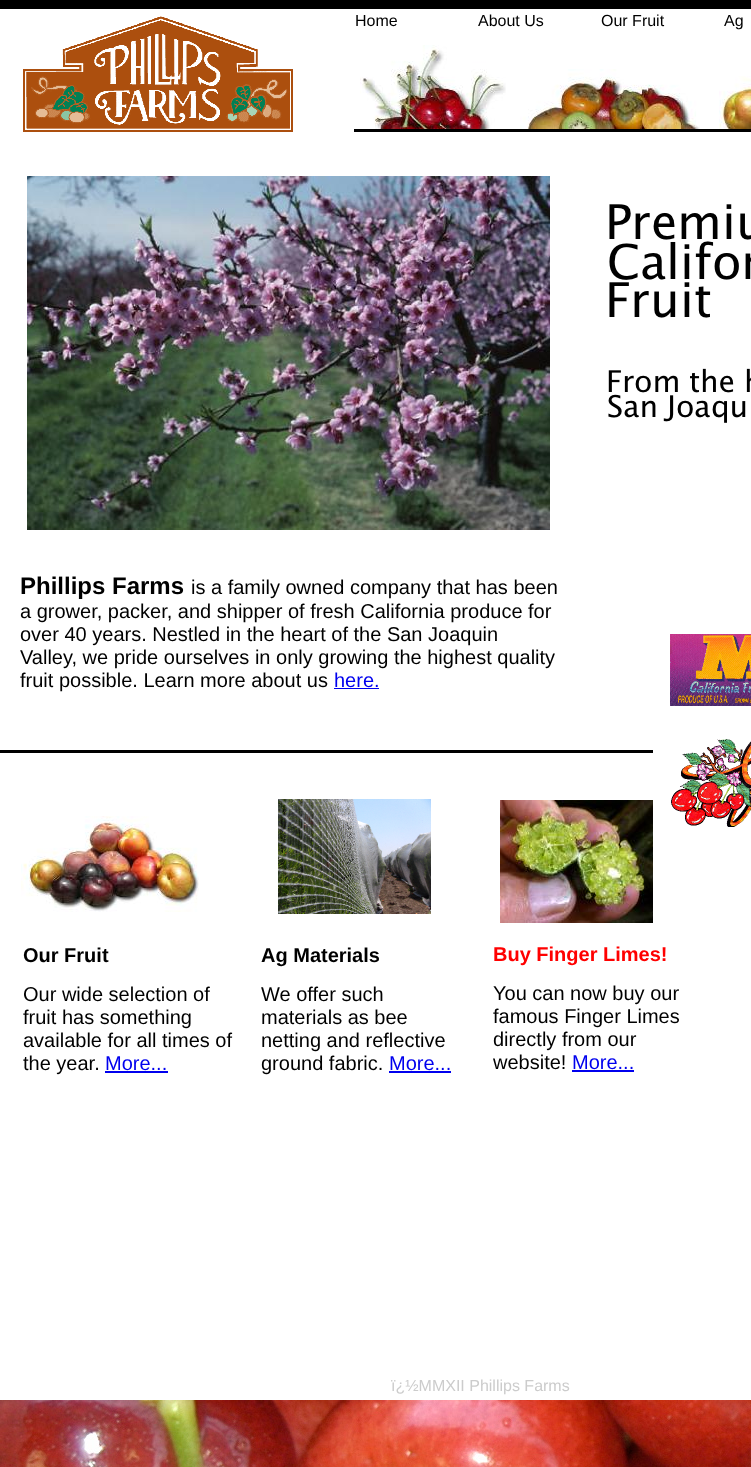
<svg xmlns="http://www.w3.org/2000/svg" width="751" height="1467">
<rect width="100%" height="100%" fill="#fff"/>
<image x="0" y="1400" width="751" height="67" href="media/1.png"/>
<rect width="751" height="9" fill="#000"/>
<image x="23" y="16" width="270" height="116" href="media/2.png"/>
<text x="355" y="26" style="font-family:Liberation Sans;font-size:16px;fill:#000">Home</text>
<text x="478" y="26" style="font-family:Liberation Sans;font-size:16px;fill:#000">About Us</text>
<text x="601" y="26" style="font-family:Liberation Sans;font-size:16px;fill:#000">Our Fruit</text>
<text x="724" y="26" style="font-family:Liberation Sans;font-size:16px;fill:#000">Ag</text>
<image x="360" y="45" width="146" height="84" href="media/3.png"/>
<image x="520" y="69" width="180" height="60" href="media/4.png"/>
<image x="719" y="76" width="32" height="53" href="media/5.png"/>
<rect x="354" y="129" width="397" height="3" fill="#000"/>
<image x="670" y="634" width="81" height="72" href="media/6.png"/>
<image x="671" y="739" width="80" height="88" href="media/7.png"/>
<image x="21" y="816" width="178" height="96" href="media/8.png"/>
<image x="500" y="800" width="153" height="123" href="media/9.png"/>
<image x="27" y="176" width="523" height="354" href="media/10.png"/>
<image x="609" y="204" width="142" height="36" href="media/11.png"/>
<image x="609" y="241" width="142" height="39" href="media/12.png"/>
<image x="609" y="282" width="102" height="36" href="media/13.png"/>
<image x="608" y="368" width="143" height="25" href="media/14.png"/>
<image x="608" y="394" width="138" height="29" href="media/15.png"/>
<text x="20" y="594" style="font-family:Liberation Sans;font-size:24px;font-weight:bold;fill:#000">Phillips Farms</text>
<text x="191" y="594" style="font-family:Liberation Sans;font-size:20px;fill:#000">is a family owned company that has been</text>
<text x="20" y="618" style="font-family:Liberation Sans;font-size:20px;fill:#000">a grower, packer, and shipper of fresh California produce for</text>
<text x="20" y="641" style="font-family:Liberation Sans;font-size:20px;fill:#000">over 40 years. Nestled in the heart of the San Joaquin</text>
<text x="20" y="664" style="font-family:Liberation Sans;font-size:20px;fill:#000">Valley, we pride ourselves in only growing the highest quality</text>
<text x="20" y="687" style="font-family:Liberation Sans;font-size:20px;fill:#000">fruit possible. Learn more about us</text>
<text x="334" y="687" style="font-family:Liberation Sans;font-size:20px;fill:#00e">here.</text>
<rect x="334" y="688" width="45" height="1" fill="#00e"/>
<rect y="750" width="653" height="3" fill="#000"/>
<image x="278" y="799" width="153" height="115" href="media/16.png"/>
<text x="23" y="962" style="font-family:Liberation Sans;font-size:20px;font-weight:bold;fill:#000">Our Fruit</text>
<text x="23" y="1001" style="font-family:Liberation Sans;font-size:20px;fill:#000">Our wide selection of</text>
<text x="23" y="1024" style="font-family:Liberation Sans;font-size:20px;fill:#000">fruit has something</text>
<text x="23" y="1047" style="font-family:Liberation Sans;font-size:20px;fill:#000">available for all times of</text>
<text x="23" y="1070" style="font-family:Liberation Sans;font-size:20px;fill:#000">the year.</text>
<text x="105" y="1070" style="font-family:Liberation Sans;font-size:20px;fill:#00e">More...</text>
<rect x="105" y="1071" width="63" height="2" fill="#00e"/>
<text x="261" y="962" style="font-family:Liberation Sans;font-size:20px;font-weight:bold;fill:#000">Ag Materials</text>
<text x="261" y="1001" style="font-family:Liberation Sans;font-size:20px;fill:#000">We offer such</text>
<text x="261" y="1024" style="font-family:Liberation Sans;font-size:20px;fill:#000">materials as bee</text>
<text x="261" y="1047" style="font-family:Liberation Sans;font-size:20px;fill:#000">netting and reflective</text>
<text x="261" y="1070" style="font-family:Liberation Sans;font-size:20px;fill:#000">ground fabric.</text>
<text x="389" y="1070" style="font-family:Liberation Sans;font-size:20px;fill:#00e">More...</text>
<rect x="389" y="1071" width="62" height="2" fill="#00e"/>
<text x="493" y="961" style="font-family:Liberation Sans;font-size:20px;font-weight:bold;fill:#f00">Buy Finger Limes!</text>
<text x="493" y="1000" style="font-family:Liberation Sans;font-size:20px;fill:#000">You can now buy our</text>
<text x="493" y="1023" style="font-family:Liberation Sans;font-size:20px;fill:#000">famous Finger Limes</text>
<text x="493" y="1046" style="font-family:Liberation Sans;font-size:20px;fill:#000">directly from our</text>
<text x="493" y="1069" style="font-family:Liberation Sans;font-size:20px;fill:#000">website!</text>
<text x="572" y="1069" style="font-family:Liberation Sans;font-size:20px;fill:#00e">More...</text>
<rect x="572" y="1070" width="62" height="2" fill="#00e"/>
<text x="391" y="1391" style="font-family:Liberation Sans;font-size:16px;fill:#ccc">ï¿½MMXII Phillips Farms</text>
</svg>
